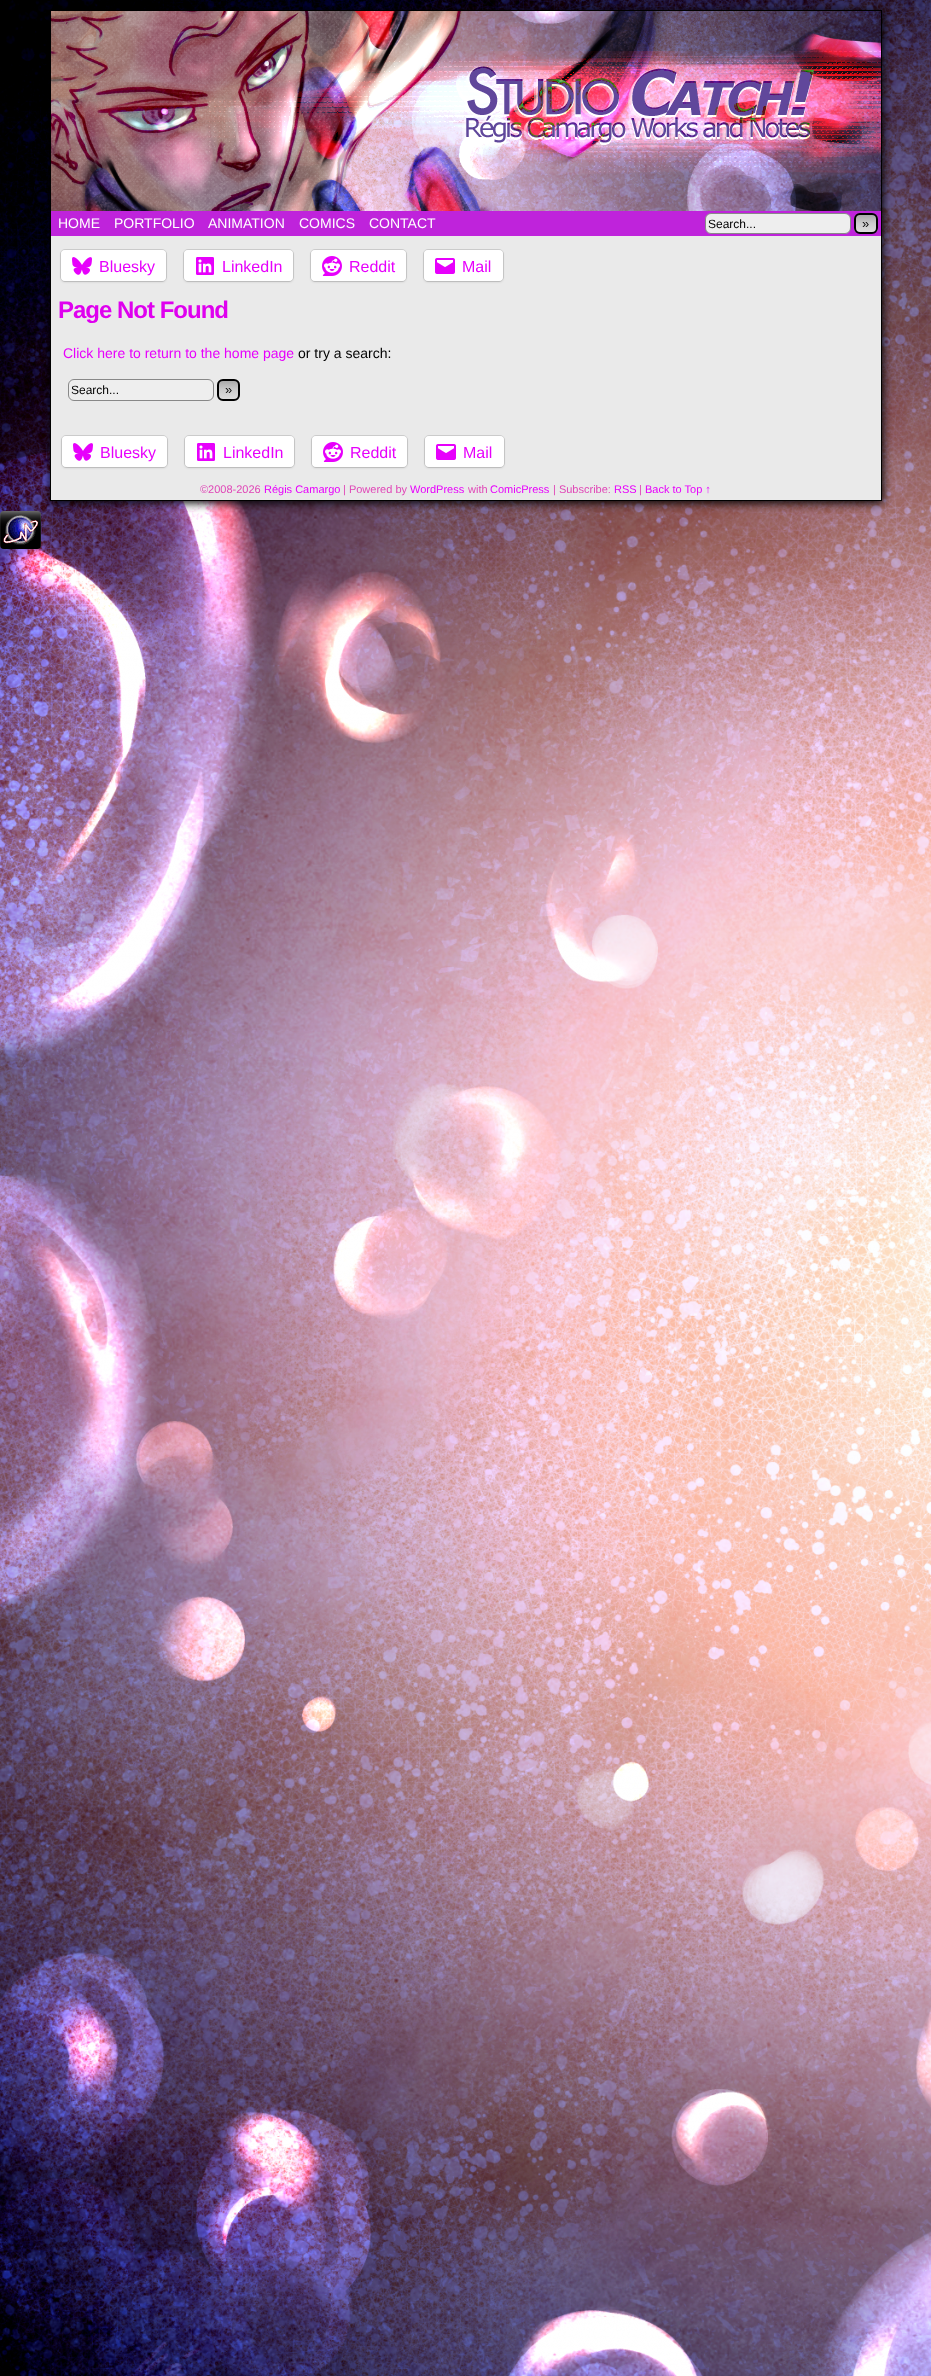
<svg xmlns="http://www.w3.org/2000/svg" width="931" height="2376">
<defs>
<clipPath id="clip1"><rect x="854" y="213" width="24" height="21" rx="6"/></clipPath>
<linearGradient id="g1" gradientUnits="userSpaceOnUse" x1="866" y1="215" x2="866" y2="232"><stop offset="0" stop-color="#aaa"/><stop offset="0.5" stop-color="#ccc"/><stop offset="1" stop-color="#ddd"/></linearGradient>
<clipPath id="clip2"><rect x="217" y="379" width="23" height="22" rx="6"/></clipPath>
<linearGradient id="g2" gradientUnits="userSpaceOnUse" x1="229" y1="381" x2="229" y2="399"><stop offset="0" stop-color="#aaa"/><stop offset="0.5" stop-color="#ccc"/><stop offset="1" stop-color="#ddd"/></linearGradient>
</defs>
<rect width="100%" height="100%" fill="#fff"/>
<image x="0" y="0" width="931" height="2376" href="media/1.png"/>
<rect x="51" y="12" width="832" height="491" fill="#000" filter="blur(5px)"/>
<rect x="51" y="236" width="830" height="264" fill="#eaeaea"/>
<rect x="50.5" y="10.5" width="831" height="490" fill="none" stroke="#000"/>
<image x="51" y="11" width="830" height="200" href="media/2.png"/>
<rect x="51" y="211" width="830" height="25" fill="#bf23db"/>
<text x="58" y="228" style="font-family:Liberation Sans;font-size:14px;fill:#fff">HOME</text>
<text x="114" y="228" style="font-family:Liberation Sans;font-size:14px;fill:#fff">PORTFOLIO</text>
<text x="208" y="228" style="font-family:Liberation Sans;font-size:14px;fill:#fff">ANIMATION</text>
<text x="299" y="228" style="font-family:Liberation Sans;font-size:14px;fill:#fff">COMICS</text>
<text x="369" y="228" style="font-family:Liberation Sans;font-size:14px;fill:#fff">CONTACT</text>
<rect x="705.5" y="213.5" width="145" height="20" rx="5.5" fill="#eee" stroke="#888"/>
<text x="708" y="228" style="font-family:Liberation Sans;font-size:12px;fill:#000">Search...</text>
<g clip-path="url(#clip1)">
<rect x="854" y="215" width="24" height="17" fill="url(#g1)"/>
</g>
<rect x="855" y="214" width="22" height="19" rx="5" fill="none" stroke="#000" stroke-width="2"/>
<text x="862" y="228" style="font-family:Liberation Sans;font-size:13px;fill:#000">»</text>
<rect x="60.5" y="249.5" width="106" height="32" rx="4.5" fill="none" stroke="#cecece"/>
<rect x="61" y="251" width="105" height="31" rx="4" fill="#0000001f" filter="blur(1px)"/>
<rect x="61" y="250" width="105" height="31" rx="4" fill="#fff"/>
<image x="72" y="257" width="20" height="18" href="media/3.png"/>
<text x="99" y="272" style="font-family:Liberation Sans;font-size:16px;fill:#e700fc">Bluesky</text>
<rect x="183.5" y="249.5" width="110" height="32" rx="4.5" fill="none" stroke="#cecece"/>
<rect x="184" y="251" width="109" height="31" rx="4" fill="#0000001f" filter="blur(1px)"/>
<rect x="184" y="250" width="109" height="31" rx="4" fill="#fff"/>
<image x="196" y="257" width="18" height="18" href="media/4.png"/>
<text x="222" y="272" style="font-family:Liberation Sans;font-size:16px;fill:#e700fc">LinkedIn</text>
<rect x="310.5" y="249.5" width="96" height="32" rx="4.5" fill="none" stroke="#cecece"/>
<rect x="311" y="251" width="95" height="31" rx="4" fill="#0000001f" filter="blur(1px)"/>
<rect x="311" y="250" width="95" height="31" rx="4" fill="#fff"/>
<image x="322" y="256" width="20" height="20" href="media/5.png"/>
<text x="349" y="272" style="font-family:Liberation Sans;font-size:16px;fill:#e700fc">Reddit</text>
<rect x="423.5" y="249.5" width="80" height="32" rx="4.5" fill="none" stroke="#cecece"/>
<rect x="424" y="251" width="79" height="31" rx="4" fill="#0000001f" filter="blur(1px)"/>
<rect x="424" y="250" width="79" height="31" rx="4" fill="#fff"/>
<image x="435" y="258" width="20" height="16" href="media/6.png"/>
<text x="462" y="272" style="font-family:Liberation Sans;font-size:16px;fill:#e700fc">Mail</text>
<text x="58" y="318" style="font-family:Liberation Sans;font-size:24px;font-weight:bold;letter-spacing:-1px;fill:#df00ef">Page Not Found</text>
<text x="63" y="358" style="font-family:Liberation Sans;font-size:14px;fill:#e700fc">Click here to return to the home page</text>
<text x="298" y="358" style="font-family:Liberation Sans;font-size:14px;fill:#000">or try a search:</text>
<rect x="68.5" y="379.5" width="145" height="21" rx="5.5" fill="#eee" stroke="#888"/>
<text x="71" y="394" style="font-family:Liberation Sans;font-size:12px;fill:#000">Search...</text>
<g clip-path="url(#clip2)">
<rect x="217" y="381" width="23" height="18" fill="url(#g2)"/>
</g>
<rect x="218" y="380" width="21" height="20" rx="5" fill="none" stroke="#000" stroke-width="2"/>
<text x="225" y="394" style="font-family:Liberation Sans;font-size:13px;fill:#000">»</text>
<rect x="61.5" y="435.5" width="106" height="32" rx="4.5" fill="none" stroke="#cecece"/>
<rect x="62" y="437" width="105" height="31" rx="4" fill="#0000001f" filter="blur(1px)"/>
<rect x="62" y="436" width="105" height="31" rx="4" fill="#fff"/>
<image x="73" y="443" width="20" height="18" href="media/3.png"/>
<text x="100" y="458" style="font-family:Liberation Sans;font-size:16px;fill:#e700fc">Bluesky</text>
<rect x="184.5" y="435.5" width="110" height="32" rx="4.5" fill="none" stroke="#cecece"/>
<rect x="185" y="437" width="109" height="31" rx="4" fill="#0000001f" filter="blur(1px)"/>
<rect x="185" y="436" width="109" height="31" rx="4" fill="#fff"/>
<image x="197" y="443" width="18" height="18" href="media/4.png"/>
<text x="223" y="458" style="font-family:Liberation Sans;font-size:16px;fill:#e700fc">LinkedIn</text>
<rect x="311.5" y="435.5" width="96" height="32" rx="4.5" fill="none" stroke="#cecece"/>
<rect x="312" y="437" width="95" height="31" rx="4" fill="#0000001f" filter="blur(1px)"/>
<rect x="312" y="436" width="95" height="31" rx="4" fill="#fff"/>
<image x="323" y="442" width="20" height="20" href="media/5.png"/>
<text x="350" y="458" style="font-family:Liberation Sans;font-size:16px;fill:#e700fc">Reddit</text>
<rect x="424.5" y="435.5" width="80" height="32" rx="4.5" fill="none" stroke="#cecece"/>
<rect x="425" y="437" width="79" height="31" rx="4" fill="#0000001f" filter="blur(1px)"/>
<rect x="425" y="436" width="79" height="31" rx="4" fill="#fff"/>
<image x="436" y="444" width="20" height="16" href="media/6.png"/>
<text x="463" y="458" style="font-family:Liberation Sans;font-size:16px;fill:#e700fc">Mail</text>
<text x="200" y="493" style="font-family:Liberation Sans;font-size:11px;fill:#e047b7">©2008-2026</text>
<text x="264" y="493" style="font-family:Liberation Sans;font-size:11px;fill:#e700fc">Régis Camargo</text>
<text x="343" y="493" style="font-family:Liberation Sans;font-size:11px;fill:#e047b7">| Powered by</text>
<text x="410" y="493" style="font-family:Liberation Sans;font-size:11px;fill:#e700fc">WordPress</text>
<text x="468" y="493" style="font-family:Liberation Sans;font-size:11px;fill:#e047b7">with</text>
<text x="490" y="493" style="font-family:Liberation Sans;font-size:11px;fill:#e700fc">ComicPress</text>
<text x="553" y="493" style="font-family:Liberation Sans;font-size:11px;fill:#e047b7">| Subscribe:</text>
<text x="614" y="493" style="font-family:Liberation Sans;font-size:11px;fill:#e700fc">RSS</text>
<text x="639" y="493" style="font-family:Liberation Sans;font-size:11px;fill:#e047b7">|</text>
<text x="645" y="493" style="font-family:Liberation Sans;font-size:11px;fill:#e700fc">Back to Top ↑</text>
<image x="0" y="511" width="41" height="38" href="media/7.png"/>
</svg>
